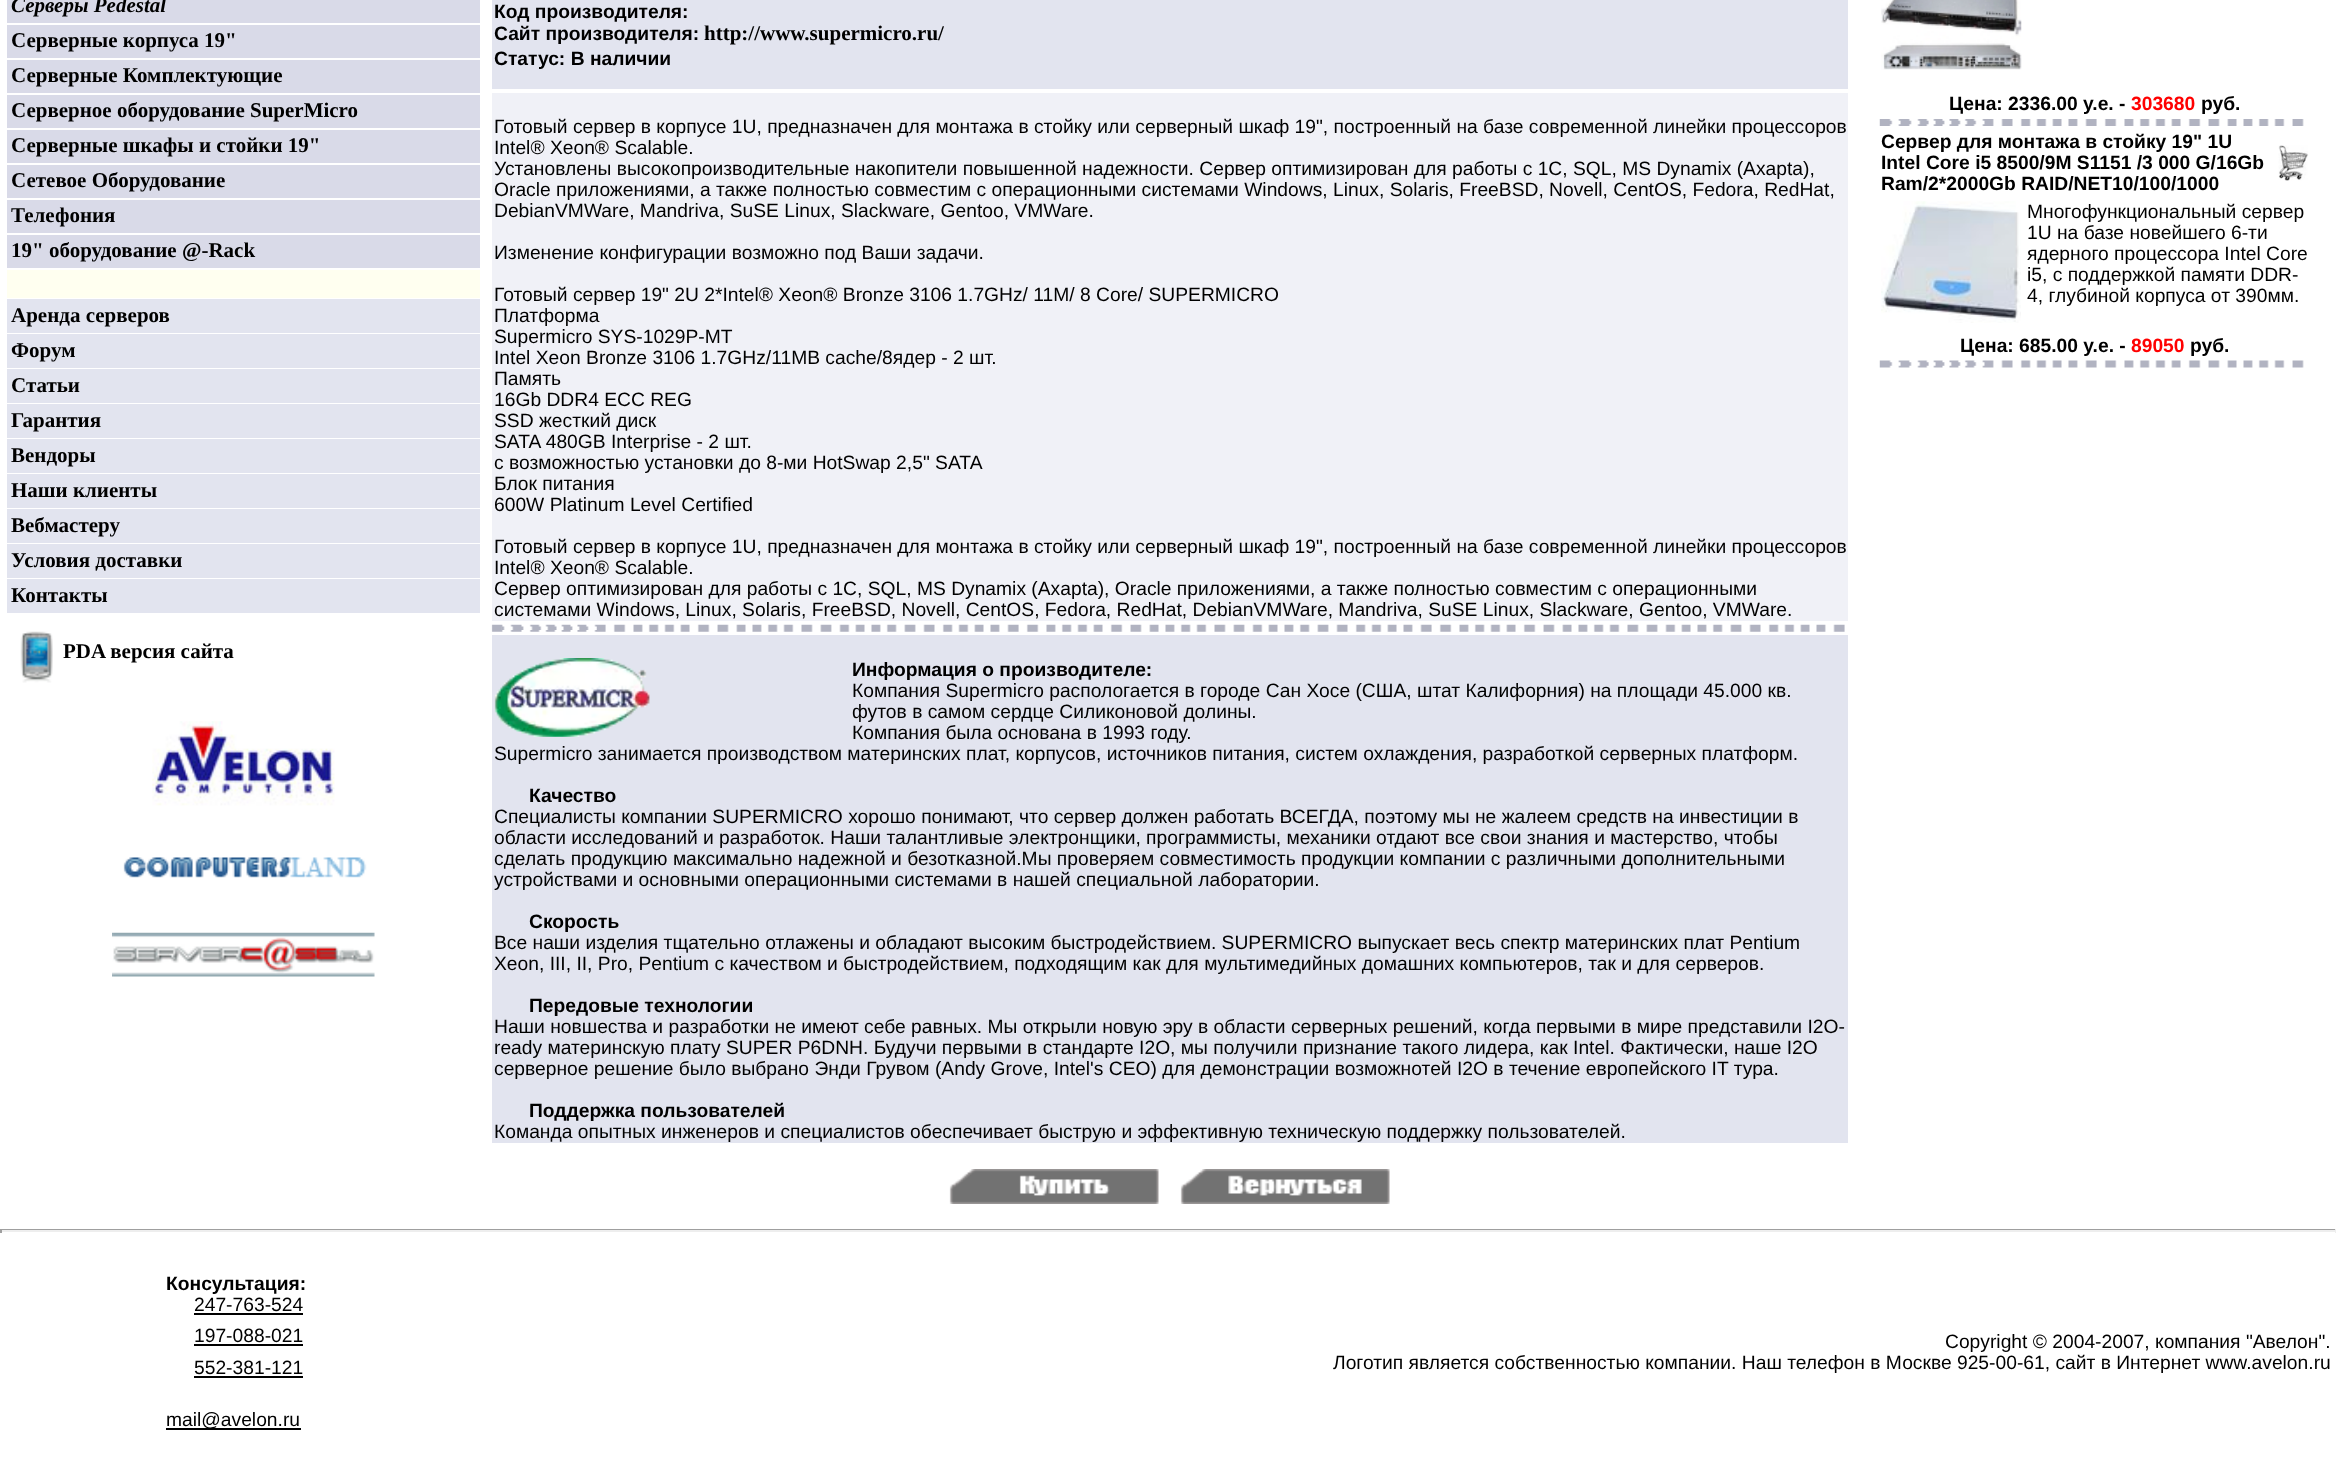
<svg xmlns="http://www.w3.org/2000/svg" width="2336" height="1460">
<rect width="100%" height="100%" fill="#fff"/>
<rect x="7" width="473" height="23" fill="#d9dae8"/>
<text x="11" y="12" style="font-family:Liberation Serif;font-size:21px;font-weight:bold;font-style:italic;fill:#000">Серверы Pedestal</text>
<rect x="7" y="25" width="473" height="33" fill="#d9dae8"/>
<text x="11" y="47" style="font-family:Liberation Serif;font-size:21px;font-weight:bold;fill:#000">Серверные корпуса 19"</text>
<rect x="7" y="60" width="473" height="33" fill="#d9dae8"/>
<text x="11" y="82" style="font-family:Liberation Serif;font-size:21px;font-weight:bold;fill:#000">Серверные Комплектующие</text>
<rect x="7" y="95" width="473" height="33" fill="#d9dae8"/>
<text x="11" y="117" style="font-family:Liberation Serif;font-size:21px;font-weight:bold;fill:#000">Серверное оборудование SuperMicro</text>
<rect x="7" y="130" width="473" height="33" fill="#d9dae8"/>
<text x="11" y="152" style="font-family:Liberation Serif;font-size:21px;font-weight:bold;fill:#000">Серверные шкафы и стойки 19"</text>
<rect x="7" y="165" width="473" height="33" fill="#d9dae8"/>
<text x="11" y="187" style="font-family:Liberation Serif;font-size:21px;font-weight:bold;fill:#000">Сетевое Оборудование</text>
<rect x="7" y="200" width="473" height="33" fill="#d9dae8"/>
<text x="11" y="222" style="font-family:Liberation Serif;font-size:21px;font-weight:bold;fill:#000">Телефония</text>
<rect x="7" y="235" width="473" height="33" fill="#d9dae8"/>
<text x="11" y="257" style="font-family:Liberation Serif;font-size:21px;font-weight:bold;fill:#000">19" оборудование @-Rack</text>
<rect x="7" y="270" width="473" height="28" fill="#fffff0"/>
<rect x="7" y="299" width="473" height="34" fill="#e2e4ef"/>
<text x="11" y="322" style="font-family:Liberation Serif;font-size:21px;font-weight:bold;fill:#000">Аренда серверов</text>
<rect x="7" y="334" width="473" height="34" fill="#e2e4ef"/>
<text x="11" y="357" style="font-family:Liberation Serif;font-size:21px;font-weight:bold;fill:#000">Форум</text>
<rect x="7" y="369" width="473" height="34" fill="#e2e4ef"/>
<text x="11" y="392" style="font-family:Liberation Serif;font-size:21px;font-weight:bold;fill:#000">Статьи</text>
<rect x="7" y="404" width="473" height="34" fill="#e2e4ef"/>
<text x="11" y="427" style="font-family:Liberation Serif;font-size:21px;font-weight:bold;fill:#000">Гарантия</text>
<rect x="7" y="439" width="473" height="34" fill="#e2e4ef"/>
<text x="11" y="462" style="font-family:Liberation Serif;font-size:21px;font-weight:bold;fill:#000">Вендоры</text>
<rect x="7" y="474" width="473" height="34" fill="#e2e4ef"/>
<text x="11" y="497" style="font-family:Liberation Serif;font-size:21px;font-weight:bold;fill:#000">Наши клиенты</text>
<rect x="7" y="509" width="473" height="34" fill="#e2e4ef"/>
<text x="11" y="532" style="font-family:Liberation Serif;font-size:21px;font-weight:bold;fill:#000">Вебмастеру</text>
<rect x="7" y="544" width="473" height="34" fill="#e2e4ef"/>
<text x="11" y="567" style="font-family:Liberation Serif;font-size:21px;font-weight:bold;fill:#000">Условия доставки</text>
<rect x="7" y="579" width="473" height="34" fill="#e2e4ef"/>
<text x="11" y="602" style="font-family:Liberation Serif;font-size:21px;font-weight:bold;fill:#000">Контакты</text>
<image x="20" y="631" width="33" height="52" href="media/1.png"/>
<text x="63" y="658" style="font-family:Liberation Serif;font-size:21px;font-weight:bold;fill:#000">PDA версия сайта</text>
<image x="152" y="721" width="183" height="85" href="media/2.png"/>
<image x="123" y="857" width="244" height="21" href="media/3.png"/>
<image x="112" y="932" width="263" height="45" href="media/4.png"/>
<rect x="492" width="1356" height="89" fill="#e2e4ef"/>
<text x="494" y="18" style="font-family:Liberation Sans;font-size:19.25px;font-weight:bold;fill:#000">Код производителя:</text>
<text x="494" y="40" style="font-family:Liberation Sans;font-size:19.25px;font-weight:bold;fill:#000">Сайт производителя:</text>
<text x="704" y="40" style="font-family:Liberation Serif;font-size:21px;font-weight:bold;fill:#000">http://www.supermicro.ru/</text>
<text x="494" y="65" style="font-family:Liberation Sans;font-size:19.25px;font-weight:bold;fill:#000">Статус: В наличии</text>
<rect x="492" y="93" width="1356" height="528" fill="#f0f1f7"/>
<text x="494" y="133" style="font-family:Liberation Sans;font-size:19.25px;fill:#000">Готовый сервер в корпусе 1U, предназначен для монтажа в стойку или cерверный шкаф 19", построенный на базе современной линейки процессоров</text>
<text x="494" y="154" style="font-family:Liberation Sans;font-size:19.25px;fill:#000">Intel® Xeon® Scalable.</text>
<text x="494" y="175" style="font-family:Liberation Sans;font-size:19.25px;fill:#000">Установлены высокопроизводительные накопители повышенной надежности. Сервер оптимизирован для работы с 1С, SQL, MS Dynamix (Axapta),</text>
<text x="494" y="196" style="font-family:Liberation Sans;font-size:19.25px;fill:#000">Oracle приложениями, а также полностью совместим с операционными системами Windows, Linux, Solaris, FreeBSD, Novell, CentOS, Fedora, RedHat,</text>
<text x="494" y="217" style="font-family:Liberation Sans;font-size:19.25px;fill:#000">DebianVMWare, Mandriva, SuSE Linux, Slackware, Gentoo, VMWare.</text>
<text x="494" y="259" style="font-family:Liberation Sans;font-size:19.25px;fill:#000">Изменение конфигурации возможно под Ваши задачи.</text>
<text x="494" y="301" style="font-family:Liberation Sans;font-size:19.25px;fill:#000">Готовый сервер 19" 2U 2*Intel® Xeon® Bronze 3106 1.7GHz/ 11M/ 8 Core/ SUPERMICRO</text>
<text x="494" y="322" style="font-family:Liberation Sans;font-size:19.25px;fill:#000">Платформа</text>
<text x="494" y="343" style="font-family:Liberation Sans;font-size:19.25px;fill:#000">Supermicro SYS-1029P-MT</text>
<text x="494" y="364" style="font-family:Liberation Sans;font-size:19.25px;fill:#000">Intel Xeon Bronze 3106 1.7GHz/11MB cache/8ядер - 2 шт.</text>
<text x="494" y="385" style="font-family:Liberation Sans;font-size:19.25px;fill:#000">Память</text>
<text x="494" y="406" style="font-family:Liberation Sans;font-size:19.25px;fill:#000">16Gb DDR4 ECC REG</text>
<text x="494" y="427" style="font-family:Liberation Sans;font-size:19.25px;fill:#000">SSD жесткий диск</text>
<text x="494" y="448" style="font-family:Liberation Sans;font-size:19.25px;fill:#000">SATA 480GB Interprise - 2 шт.</text>
<text x="494" y="469" style="font-family:Liberation Sans;font-size:19.25px;fill:#000">с возможностью установки до 8-ми HotSwap 2,5" SATA</text>
<text x="494" y="490" style="font-family:Liberation Sans;font-size:19.25px;fill:#000">Блок питания</text>
<text x="494" y="511" style="font-family:Liberation Sans;font-size:19.25px;fill:#000">600W Platinum Level Certified</text>
<text x="494" y="553" style="font-family:Liberation Sans;font-size:19.25px;fill:#000">Готовый сервер в корпусе 1U, предназначен для монтажа в стойку или cерверный шкаф 19", построенный на базе современной линейки процессоров</text>
<text x="494" y="574" style="font-family:Liberation Sans;font-size:19.25px;fill:#000">Intel® Xeon® Scalable.</text>
<text x="494" y="595" style="font-family:Liberation Sans;font-size:19.25px;fill:#000">Сервер оптимизирован для работы с 1С, SQL, MS Dynamix (Axapta), Oracle приложениями, а также полностью совместим с операционными</text>
<text x="494" y="616" style="font-family:Liberation Sans;font-size:19.25px;fill:#000">системами Windows, Linux, Solaris, FreeBSD, Novell, CentOS, Fedora, RedHat, DebianVMWare, Mandriva, SuSE Linux, Slackware, Gentoo, VMWare.</text>
<image x="491" y="624" width="1354" height="8" href="media/5.png"/>
<image x="502" y="626" width="95" height="4" href="media/6.png"/>
<rect x="492" y="635" width="1356" height="508" fill="#e2e4ef"/>
<image x="494" y="658" width="156" height="79" href="media/7.png"/>
<text x="852" y="676" style="font-family:Liberation Sans;font-size:19.25px;font-weight:bold;fill:#000">Информация о производителе:</text>
<text x="852" y="697" style="font-family:Liberation Sans;font-size:19.25px;fill:#000">Компания Supermicro распологается в городе Сан Хосе (США, штат Калифорния) на площади 45.000 кв.</text>
<text x="852" y="718" style="font-family:Liberation Sans;font-size:19.25px;fill:#000">футов в самом сердце Силиконовой долины.</text>
<text x="852" y="739" style="font-family:Liberation Sans;font-size:19.25px;fill:#000">Компания была основана в 1993 году.</text>
<text x="494" y="760" style="font-family:Liberation Sans;font-size:19.25px;fill:#000">Supermicro занимается производством материнских плат, корпусов, источников питания, систем охлаждения, разработкой серверных платформ.</text>
<text x="529" y="802" style="font-family:Liberation Sans;font-size:19.25px;font-weight:bold;fill:#000">Качество</text>
<text x="494" y="823" style="font-family:Liberation Sans;font-size:19.25px;fill:#000">Специалисты компании SUPERMICRO хорошо понимают, что сервер должен работать ВСЕГДА, поэтому мы не жалеем средств на инвестиции в</text>
<text x="494" y="844" style="font-family:Liberation Sans;font-size:19.25px;fill:#000">области исследований и разработок. Наши талантливые электронщики, программисты, механики отдают все свои знания и мастерство, чтобы</text>
<text x="494" y="865" style="font-family:Liberation Sans;font-size:19.25px;fill:#000">сделать продукцию максимально надежной и безотказной.Мы проверяем совместимость продукции компании с различными дополнительными</text>
<text x="494" y="886" style="font-family:Liberation Sans;font-size:19.25px;fill:#000">устройствами и основными операционными системами в нашей специальной лаборатории.</text>
<text x="529" y="928" style="font-family:Liberation Sans;font-size:19.25px;font-weight:bold;fill:#000">Скорость</text>
<text x="494" y="949" style="font-family:Liberation Sans;font-size:19.25px;fill:#000">Все наши изделия тщательно отлажены и обладают высоким быстродействием. SUPERMICRO выпускает весь спектр материнских плат Pentium</text>
<text x="494" y="970" style="font-family:Liberation Sans;font-size:19.25px;fill:#000">Xeon, III, II, Pro, Pentium с качеством и быстродействием, подходящим как для мультимедийных домашних компьютеров, так и для серверов.</text>
<text x="529" y="1012" style="font-family:Liberation Sans;font-size:19.25px;font-weight:bold;fill:#000">Передовые технологии</text>
<text x="494" y="1033" style="font-family:Liberation Sans;font-size:19.25px;fill:#000">Наши новшества и разработки не имеют себе равных. Мы открыли новую эру в области серверных решений, когда первыми в мире представили I2O-</text>
<text x="494" y="1054" style="font-family:Liberation Sans;font-size:19.25px;fill:#000">ready материнскую плату SUPER P6DNH. Будучи первыми в стандарте I2O, мы получили признание такого лидера, как Intel. Фактически, наше I2O</text>
<text x="494" y="1075" style="font-family:Liberation Sans;font-size:19.25px;fill:#000">серверное решение было выбрано Энди Грувом (Andy Grove, Intel's CEO) для демонстрации возможнотей I2O в течение европейского IT тура.</text>
<text x="529" y="1117" style="font-family:Liberation Sans;font-size:19.25px;font-weight:bold;fill:#000">Поддержка пользователей</text>
<text x="494" y="1138" style="font-family:Liberation Sans;font-size:19.25px;fill:#000">Команда опытных инженеров и специалистов обеспечивает быструю и эффективную техническую поддержку пользователей.</text>
<image x="949" y="1169" width="210" height="35" href="media/8.png"/>
<image x="1180" y="1169" width="210" height="35" href="media/9.png"/>
<image x="1881" y="0" width="141" height="70" href="media/10.png"/>
<text x="1949" y="110" style="font-family:Liberation Sans;font-size:19.25px;font-weight:bold;fill:#000">Цена: 2336.00 y.e. -</text>
<text x="2131" y="110" style="font-family:Liberation Sans;font-size:19.25px;font-weight:bold;fill:#f00">303680</text>
<text x="2201" y="110" style="font-family:Liberation Sans;font-size:19.25px;font-weight:bold;fill:#000">руб.</text>
<image x="1879" y="119" width="425" height="7" href="media/11.png"/>
<image x="1889" y="120" width="96" height="5" href="media/12.png"/>
<text x="1881" y="148" style="font-family:Liberation Sans;font-size:19.25px;font-weight:bold;fill:#000">Сервер для монтажа в стойку 19" 1U</text>
<text x="1881" y="169" style="font-family:Liberation Sans;font-size:19.25px;font-weight:bold;fill:#000">Intel Core i5 8500/9M S1151 /3 000 G/16Gb</text>
<text x="1881" y="190" style="font-family:Liberation Sans;font-size:19.25px;font-weight:bold;fill:#000">Ram/2*2000Gb RAID/NET10/100/1000</text>
<image x="2278" y="145" width="31" height="36" href="media/13.png"/>
<image x="1881" y="201" width="140" height="122" href="media/14.png"/>
<text x="2027" y="218" style="font-family:Liberation Sans;font-size:19.25px;fill:#000">Многофункциональный сервер</text>
<text x="2027" y="239" style="font-family:Liberation Sans;font-size:19.25px;fill:#000">1U на базе новейшего 6-ти</text>
<text x="2027" y="260" style="font-family:Liberation Sans;font-size:19.25px;fill:#000">ядерного процессора Intel Core</text>
<text x="2027" y="281" style="font-family:Liberation Sans;font-size:19.25px;fill:#000">i5, с поддержкой памяти DDR-</text>
<text x="2027" y="302" style="font-family:Liberation Sans;font-size:19.25px;fill:#000">4, глубиной корпуса от 390мм.</text>
<text x="1960" y="352" style="font-family:Liberation Sans;font-size:19.25px;font-weight:bold;fill:#000">Цена: 685.00 y.e. -</text>
<text x="2131" y="352" style="font-family:Liberation Sans;font-size:19.25px;font-weight:bold;fill:#f00">89050</text>
<text x="2190" y="352" style="font-family:Liberation Sans;font-size:19.25px;font-weight:bold;fill:#000">руб.</text>
<image x="1879" y="360" width="425" height="8" href="media/15.png"/>
<image x="1889" y="362" width="96" height="4" href="media/16.png"/>
<rect y="1229" width="2336" height="1" fill="#9f9f9f"/>
<rect x="2335" y="1229" width="1" height="4" fill="#eee"/>
<rect y="1230" width="2336" height="2" fill="#eee"/>
<rect y="1229" width="2" height="4" fill="#9f9f9f"/>
<text x="166" y="1290" style="font-family:Liberation Sans;font-size:19.25px;font-weight:bold;fill:#000">Консультация:</text>
<text x="194" y="1311" style="font-family:Liberation Sans;font-size:19.25px;fill:#000">247-763-524</text>
<rect x="194" y="1313" width="109" height="2" fill="#000"/>
<text x="194" y="1342" style="font-family:Liberation Sans;font-size:19.25px;fill:#000">197-088-021</text>
<rect x="194" y="1344" width="109" height="2" fill="#000"/>
<text x="194" y="1374" style="font-family:Liberation Sans;font-size:19.25px;fill:#000">552-381-121</text>
<rect x="194" y="1376" width="109" height="2" fill="#000"/>
<rect x="166" y="1428" width="135" height="2" fill="#000"/>
<text x="166" y="1426" style="font-family:Liberation Sans;font-size:19.25px;fill:#000">mail@avelon.ru</text>
<text x="1945" y="1348" style="font-family:Liberation Sans;font-size:19.25px;fill:#000">Copyright © 2004-2007, компания "Авелон".</text>
<text x="1333" y="1369" style="font-family:Liberation Sans;font-size:19.25px;fill:#000">Логотип является собственностью компании. Наш телефон в Москве 925-00-61, сайт в Интернет www.avelon.ru</text>
</svg>
